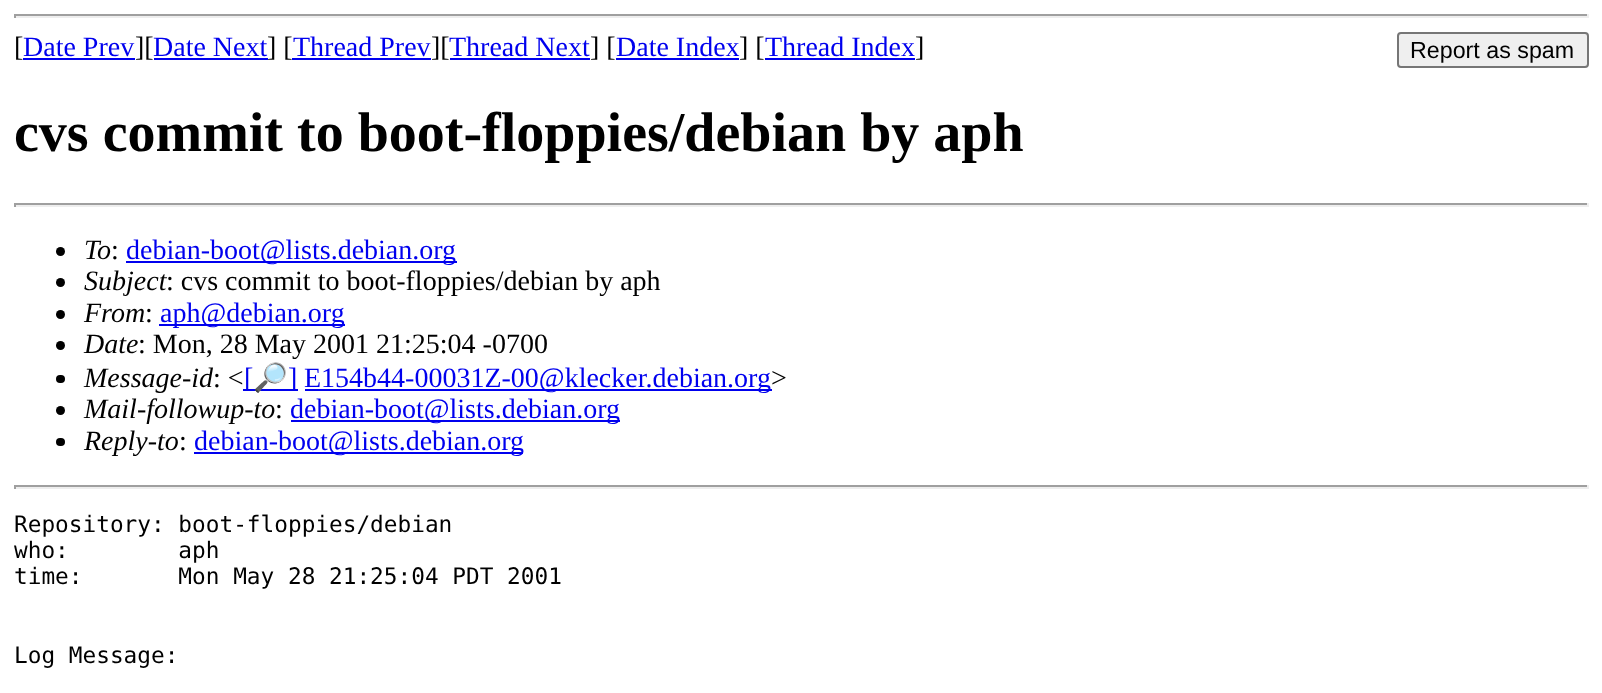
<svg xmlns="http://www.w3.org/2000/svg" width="1602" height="693">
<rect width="100%" height="100%" fill="#fff"/>
<rect x="14" y="14" width="1575" height="2" fill="#9f9f9f"/>
<rect x="1587" y="14" width="2" height="4" fill="#eee"/>
<rect x="14" y="16" width="1575" height="2" fill="#eee"/>
<rect x="14" y="14" width="2" height="4" fill="#9f9f9f"/>
<text x="14" y="56" style="font-family:Liberation Serif;font-size:28px;fill:#000">[</text>
<text x="23" y="56" style="font-family:Liberation Serif;font-size:28px;fill:#00e">Date Prev</text>
<rect x="23" y="58" width="112" height="2" fill="#00e"/>
<text x="135" y="56" style="font-family:Liberation Serif;font-size:28px;fill:#000">][</text>
<text x="153" y="56" style="font-family:Liberation Serif;font-size:28px;fill:#00e">Date Next</text>
<rect x="154" y="58" width="114" height="2" fill="#00e"/>
<text x="267" y="56" style="font-family:Liberation Serif;font-size:28px;fill:#000">] [</text>
<text x="293" y="56" style="font-family:Liberation Serif;font-size:28px;fill:#00e">Thread Prev</text>
<rect x="292" y="58" width="139" height="2" fill="#00e"/>
<text x="431" y="56" style="font-family:Liberation Serif;font-size:28px;fill:#000">][</text>
<text x="449" y="56" style="font-family:Liberation Serif;font-size:28px;fill:#00e">Thread Next</text>
<rect x="450" y="58" width="140" height="2" fill="#00e"/>
<text x="590" y="56" style="font-family:Liberation Serif;font-size:28px;fill:#000">] [</text>
<text x="616" y="56" style="font-family:Liberation Serif;font-size:28px;fill:#00e">Date Index</text>
<rect x="616" y="58" width="123" height="2" fill="#00e"/>
<text x="739" y="56" style="font-family:Liberation Serif;font-size:28px;fill:#000">] [</text>
<text x="765" y="56" style="font-family:Liberation Serif;font-size:28px;fill:#00e">Thread Index</text>
<rect x="765" y="58" width="150" height="2" fill="#00e"/>
<text x="915" y="56" style="font-family:Liberation Serif;font-size:28px;fill:#000">]</text>
<rect x="1398" y="33" width="190" height="34" rx="3" fill="#efefef" stroke="#767676" stroke-width="2"/>
<text x="1410" y="58" style="font-family:Liberation Sans;font-size:23.25px;fill:#000">Report as spam</text>
<text x="14" y="151" style="font-family:Liberation Serif;font-size:56px;font-weight:bold;fill:#000">cvs commit to boot-floppies/debian by aph</text>
<rect x="14" y="203" width="1575" height="2" fill="#9f9f9f"/>
<rect x="1587" y="203" width="2" height="4" fill="#eee"/>
<rect x="14" y="205" width="1575" height="2" fill="#eee"/>
<rect x="14" y="203" width="2" height="4" fill="#9f9f9f"/>
<circle cx="60.5" cy="251.5" r="4.5" fill="#000"/>
<text x="84" y="259" style="font-family:Liberation Serif;font-size:28px;font-style:italic;fill:#000">To</text>
<text x="111" y="259" style="font-family:Liberation Serif;font-size:28px;fill:#000">:</text>
<rect x="126" y="261" width="331" height="2" fill="#00e"/>
<text x="126" y="259" style="font-family:Liberation Serif;font-size:28px;fill:#00e">debian-boot@lists.debian.org</text>
<circle cx="60.5" cy="282.5" r="4.5" fill="#000"/>
<text x="84" y="290" style="font-family:Liberation Serif;font-size:28px;font-style:italic;fill:#000">Subject</text>
<text x="166" y="290" style="font-family:Liberation Serif;font-size:28px;fill:#000">: cvs commit to boot-floppies/debian by aph</text>
<circle cx="60.5" cy="314.5" r="4.5" fill="#000"/>
<text x="84" y="322" style="font-family:Liberation Serif;font-size:28px;font-style:italic;fill:#000">From</text>
<text x="145" y="322" style="font-family:Liberation Serif;font-size:28px;fill:#000">:</text>
<rect x="159" y="324" width="186" height="2" fill="#00e"/>
<text x="160" y="322" style="font-family:Liberation Serif;font-size:28px;fill:#00e">aph@debian.org</text>
<circle cx="60.5" cy="345.5" r="4.5" fill="#000"/>
<text x="84" y="353" style="font-family:Liberation Serif;font-size:28px;font-style:italic;fill:#000">Date</text>
<text x="138" y="353" style="font-family:Liberation Serif;font-size:28px;fill:#000">: Mon, 28 May 2001 21:25:04 -0700</text>
<rect x="56" y="375" width="9" height="8" rx="4" fill="#000"/>
<text x="84" y="387" style="font-family:Liberation Serif;font-size:28px;font-style:italic;fill:#000">Message-id</text>
<text x="213" y="387" style="font-family:Liberation Serif;font-size:28px;fill:#000">: &lt;</text>
<rect x="243" y="389" width="55" height="2" fill="#00e"/>
<text x="244" y="387" style="font-family:Liberation Serif;font-size:28px;fill:#00e">[</text>
<text x="253" y="387" style="font-family:Noto Color Emoji;font-size:28px;fill:#00e">🔎</text>
<text x="288" y="387" style="font-family:Liberation Serif;font-size:28px;fill:#00e">]</text>
<rect x="305" y="389" width="467" height="2" fill="#00e"/>
<text x="304" y="387" style="font-family:Liberation Serif;font-size:28px;fill:#00e">E154b44-00031Z-00@klecker.debian.org</text>
<text x="771" y="387" style="font-family:Liberation Serif;font-size:28px;fill:#000">&gt;</text>
<circle cx="60.5" cy="410.5" r="4.5" fill="#000"/>
<text x="84" y="418" style="font-family:Liberation Serif;font-size:28px;font-style:italic;fill:#000">Mail-followup-to</text>
<text x="275" y="418" style="font-family:Liberation Serif;font-size:28px;fill:#000">:</text>
<rect x="291" y="420" width="329" height="2" fill="#00e"/>
<text x="290" y="418" style="font-family:Liberation Serif;font-size:28px;fill:#00e">debian-boot@lists.debian.org</text>
<rect x="56" y="438" width="9" height="8" rx="4" fill="#000"/>
<text x="84" y="450" style="font-family:Liberation Serif;font-size:28px;font-style:italic;fill:#000">Reply-to</text>
<text x="179" y="450" style="font-family:Liberation Serif;font-size:28px;fill:#000">:</text>
<rect x="194" y="452" width="329" height="2" fill="#00e"/>
<text x="194" y="450" style="font-family:Liberation Serif;font-size:28px;fill:#00e">debian-boot@lists.debian.org</text>
<rect x="14" y="485" width="1575" height="2" fill="#9f9f9f"/>
<rect x="1587" y="485" width="2" height="4" fill="#eee"/>
<rect x="14" y="487" width="1575" height="2" fill="#eee"/>
<rect x="14" y="485" width="2" height="4" fill="#9f9f9f"/>
<text x="14" y="532" style="font-family:DejaVu Sans Mono;font-size:22.75px;fill:#000">Repository: boot-floppies/debian</text>
<text x="14" y="558" style="font-family:DejaVu Sans Mono;font-size:22.75px;fill:#000" xml:space="preserve">who:        aph</text>
<text x="14" y="584" style="font-family:DejaVu Sans Mono;font-size:22.75px;fill:#000" xml:space="preserve">time:       Mon May 28 21:25:04 PDT 2001</text>
<text x="14" y="663" style="font-family:DejaVu Sans Mono;font-size:22.75px;fill:#000">Log Message:</text>
</svg>
